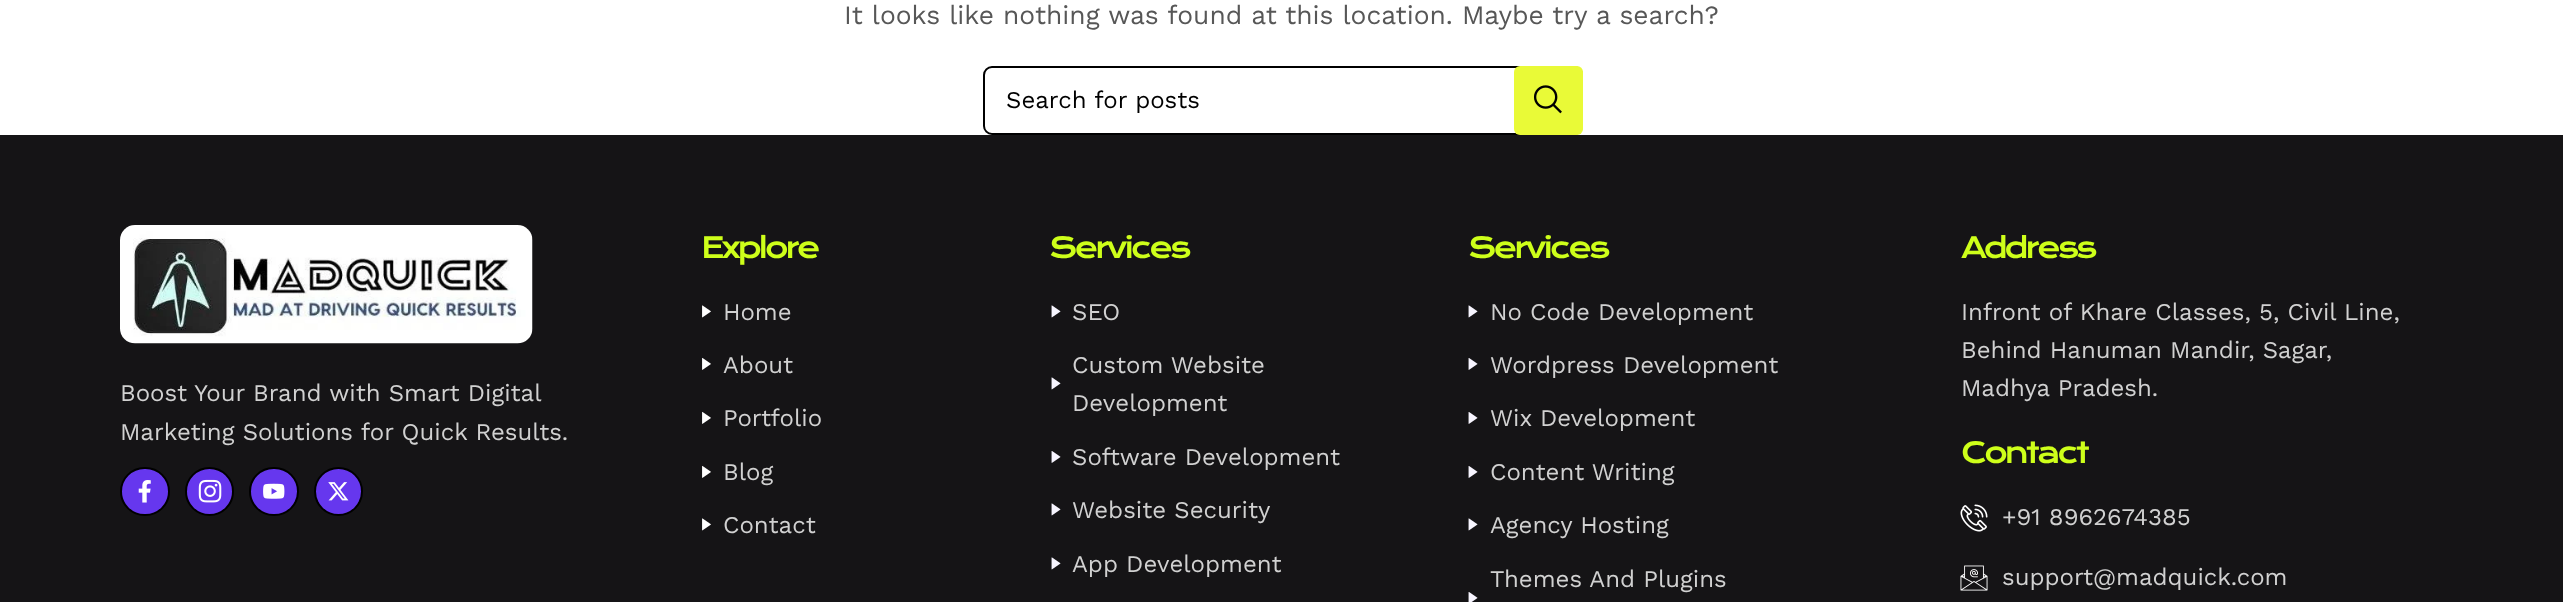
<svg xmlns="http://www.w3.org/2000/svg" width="2563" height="602">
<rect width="100%" height="100%" fill="#fff"/>
<text x="844" y="24" style="font-family:Work Sans;font-size:26.4px;fill:#575757">It looks like nothing was found at this location. Maybe try a search?</text>
<rect x="984" y="67" width="598" height="67" rx="8" fill="none" stroke="#000" stroke-width="2"/>
<text x="1006" y="108" style="font-family:Work Sans;font-size:24px;fill:#000">Search for posts</text>
<rect x="1514" y="66" width="69" height="69" rx="6" fill="#e9fa37"/>
<image x="1534" y="85" width="28" height="29" href="media/1.png"/>
<rect y="135" width="2563" height="467" fill="#151416"/>
<image x="120" y="225" width="413" height="119" href="media/2.png"/>
<text x="120" y="401" style="font-family:Work Sans;font-size:24px;fill:#d1d1d1">Boost Your Brand with Smart Digital</text>
<text x="120" y="440" style="font-family:Work Sans;font-size:24px;fill:#d1d1d1">Marketing Solutions for Quick Results.</text>
<rect x="121" y="468" width="48" height="47" rx="23.5" fill="#6637ee" stroke="#000" stroke-width="2"/>
<image x="138" y="480" width="13" height="23" href="media/3.png"/>
<circle cx="209.5" cy="491.5" r="23.5" fill="#6637ee" stroke="#000" stroke-width="2"/>
<image x="198" y="479" width="24" height="24" href="media/4.png"/>
<rect x="250" y="468" width="48" height="47" rx="23.5" fill="#6637ee" stroke="#000" stroke-width="2"/>
<image x="263" y="483" width="22" height="16" href="media/5.png"/>
<circle cx="338.5" cy="491.5" r="23.5" fill="#6637ee" stroke="#000" stroke-width="2"/>
<image x="328" y="482" width="21" height="19" href="media/6.png"/>
<text x="701" y="258" style="font-family:Krona One;font-size:28.5px;letter-spacing:-3px;fill:#ceff1a">Explore</text>
<image x="702" y="305" width="9" height="13" href="media/7.png"/>
<text x="723" y="320" style="font-family:Work Sans;font-size:24px;fill:#d1d1d1">Home</text>
<image x="702" y="357" width="9" height="13" href="media/8.png"/>
<text x="723" y="373" style="font-family:Work Sans;font-size:24px;fill:#d1d1d1">About</text>
<image x="702" y="411" width="9" height="13" href="media/8.png"/>
<text x="723" y="426" style="font-family:Work Sans;font-size:24px;fill:#d1d1d1">Portfolio</text>
<image x="702" y="465" width="9" height="13" href="media/8.png"/>
<text x="723" y="480" style="font-family:Work Sans;font-size:24px;fill:#d1d1d1">Blog</text>
<image x="702" y="518" width="9" height="13" href="media/7.png"/>
<text x="723" y="533" style="font-family:Work Sans;font-size:24px;fill:#d1d1d1">Contact</text>
<text x="1049" y="258" style="font-family:Krona One;font-size:28.5px;letter-spacing:-3px;fill:#ceff1a">Services</text>
<image x="1051" y="305" width="10" height="13" href="media/9.png"/>
<text x="1072" y="320" style="font-family:Work Sans;font-size:24px;fill:#d1d1d1">SEO</text>
<image x="1051" y="377" width="10" height="13" href="media/9.png"/>
<text x="1072" y="373" style="font-family:Work Sans;font-size:24px;fill:#d1d1d1">Custom Website</text>
<text x="1072" y="411" style="font-family:Work Sans;font-size:24px;fill:#d1d1d1">Development</text>
<image x="1051" y="451" width="10" height="12" href="media/10.png"/>
<text x="1072" y="465" style="font-family:Work Sans;font-size:24px;fill:#d1d1d1">Software Development</text>
<image x="1051" y="503" width="10" height="13" href="media/9.png"/>
<text x="1072" y="518" style="font-family:Work Sans;font-size:24px;fill:#d1d1d1">Website Security</text>
<image x="1051" y="557" width="10" height="13" href="media/9.png"/>
<text x="1072" y="572" style="font-family:Work Sans;font-size:24px;fill:#d1d1d1">App Development</text>
<text x="1468" y="258" style="font-family:Krona One;font-size:28.5px;letter-spacing:-3px;fill:#ceff1a">Services</text>
<image x="1468" y="305" width="10" height="13" href="media/9.png"/>
<text x="1490" y="320" style="font-family:Work Sans;font-size:24px;fill:#d1d1d1">No Code Development</text>
<image x="1468" y="358" width="10" height="12" href="media/10.png"/>
<text x="1490" y="373" style="font-family:Work Sans;font-size:24px;fill:#d1d1d1">Wordpress Development</text>
<image x="1468" y="412" width="10" height="12" href="media/10.png"/>
<text x="1490" y="426" style="font-family:Work Sans;font-size:24px;fill:#d1d1d1">Wix Development</text>
<image x="1468" y="466" width="10" height="12" href="media/10.png"/>
<text x="1490" y="480" style="font-family:Work Sans;font-size:24px;fill:#d1d1d1">Content Writing</text>
<image x="1468" y="518" width="10" height="13" href="media/9.png"/>
<text x="1490" y="533" style="font-family:Work Sans;font-size:24px;fill:#d1d1d1">Agency Hosting</text>
<text x="1490" y="587" style="font-family:Work Sans;font-size:24px;fill:#d1d1d1">Themes And Plugins</text>
<image x="1468" y="592" width="10" height="10" href="media/11.png"/>
<text x="1961" y="258" style="font-family:Krona One;font-size:28.5px;letter-spacing:-3px;fill:#ceff1a">Address</text>
<text x="1961" y="320" style="font-family:Work Sans;font-size:24px;fill:#d1d1d1">Infront of Khare Classes, 5, Civil Line,</text>
<text x="1961" y="358" style="font-family:Work Sans;font-size:24px;fill:#d1d1d1">Behind Hanuman Mandir, Sagar,</text>
<text x="1961" y="396" style="font-family:Work Sans;font-size:24px;fill:#d1d1d1">Madhya Pradesh.</text>
<text x="1961" y="463" style="font-family:Krona One;font-size:28.5px;letter-spacing:-3px;fill:#ceff1a">Contact</text>
<image x="1960" y="504" width="28" height="28" href="media/12.png"/>
<text x="2002" y="525" style="font-family:Work Sans;font-size:24px;fill:#d1d1d1">+91 8962674385</text>
<image x="1960" y="565" width="28" height="26" href="media/13.png"/>
<text x="2002" y="585" style="font-family:Work Sans;font-size:24px;fill:#d1d1d1">support@madquick.com</text>
</svg>
